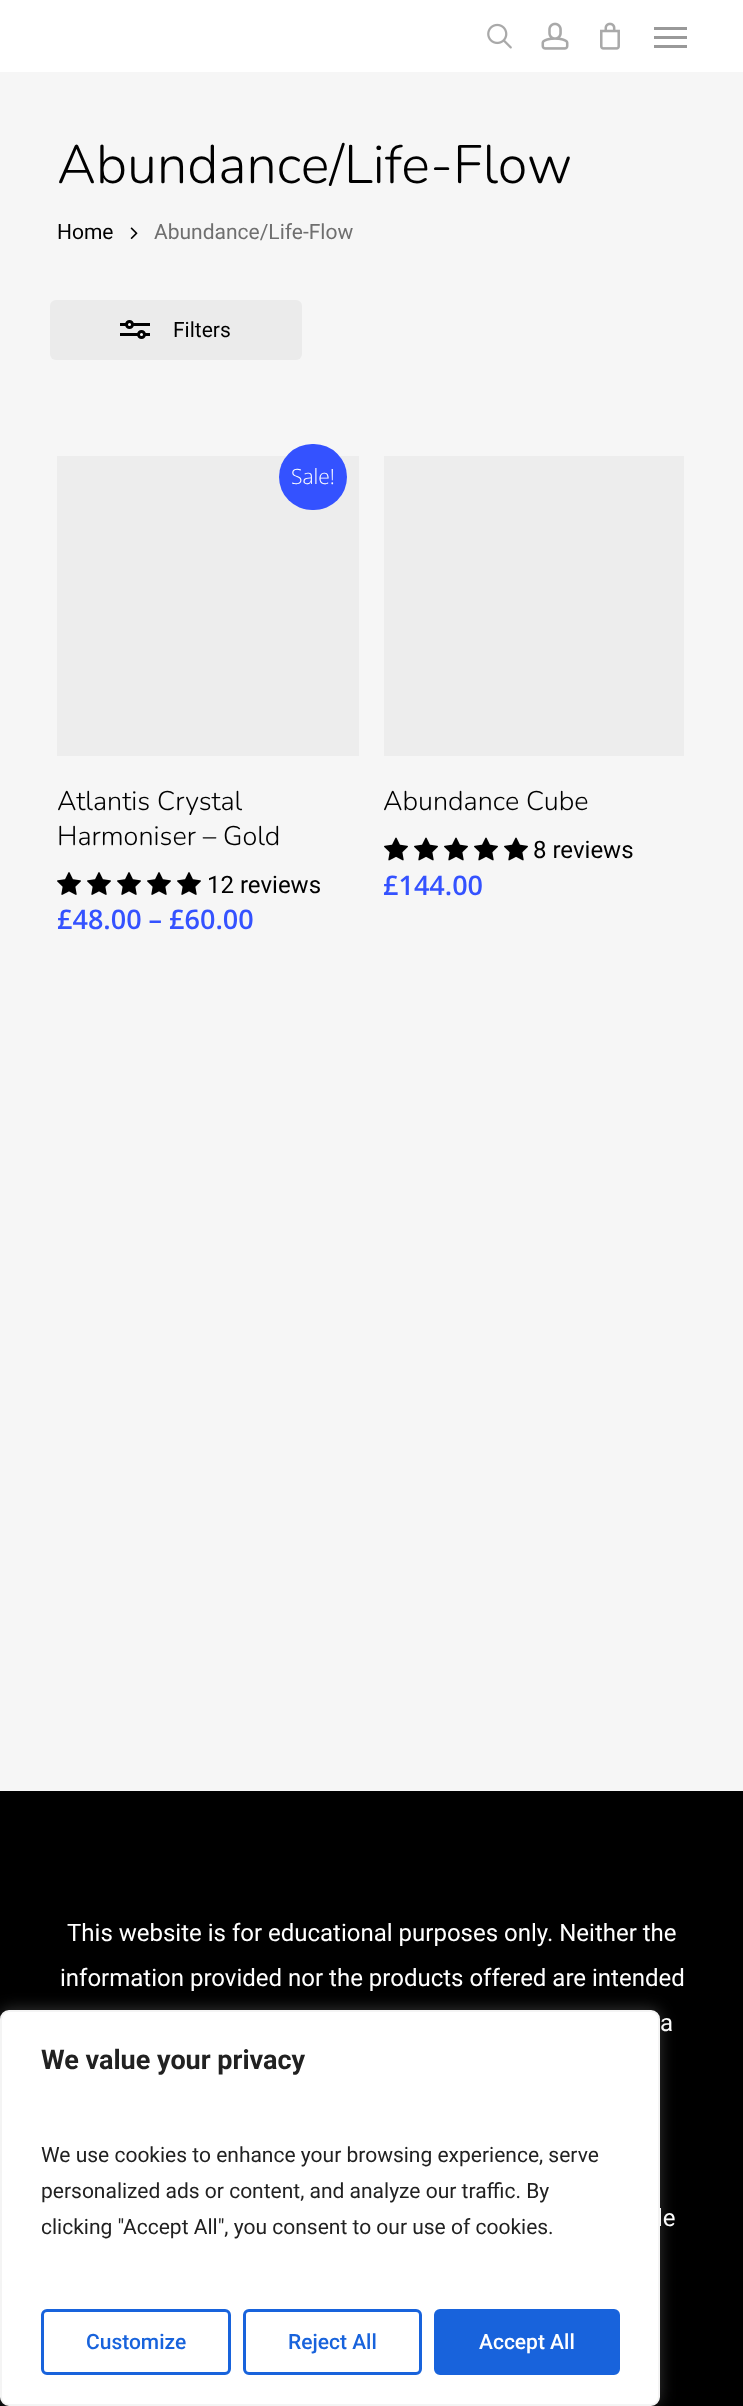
<svg xmlns="http://www.w3.org/2000/svg" width="743" height="2406">
<rect width="100%" height="100%" fill="#fff"/>
<image x="487" y="23" width="25" height="26" href="media/1.png"/>
<image x="541" y="22" width="28" height="28" href="media/2.png"/>
<image x="600" y="22" width="20" height="28" href="media/3.png"/>
<rect x="654" y="27" width="33" height="3" fill="#999"/>
<rect x="654" y="45" width="33" height="3" fill="#999"/>
<rect x="654" y="36" width="33" height="3" fill="#999"/>
<rect y="72" width="743" height="1719" fill="#f6f6f6"/>
<text x="57" y="183" style="font-family:Nunito;font-size:54px;font-weight:300;fill:#000">Abundance/Life-Flow</text>
<text x="57" y="239" style="font-family:Roboto;font-size:21px;fill:#000">Home</text>
<image x="130" y="227" width="8" height="12" href="media/4.png"/>
<text x="154" y="239" style="font-family:Roboto;font-size:21px;fill:#6f6f6f">Abundance/Life-Flow</text>
<rect x="50" y="300" width="252" height="60" rx="6" fill="#ebebeb"/>
<rect x="120" y="323" width="30" height="3" fill="#000"/>
<rect x="120" y="333" width="30" height="3" fill="#000"/>
<circle cx="129.5" cy="324.5" r="3" fill="#fff" stroke="#000" stroke-width="3"/>
<circle cx="141.5" cy="334.5" r="3" fill="#fff" stroke="#000" stroke-width="3"/>
<text x="173" y="337" style="font-family:Roboto;font-size:21px;fill:#000">Filters</text>
<rect x="57" y="456" width="302" height="300" fill="#ededed"/>
<rect x="279" y="444" width="68" height="66" rx="33" fill="#3452ff"/>
<text x="291" y="484" style="font-family:Open Sans;font-size:21px;font-weight:300;fill:#fff">Sale!</text>
<text x="57" y="810" style="font-family:Nunito;font-size:27px;font-weight:300;fill:#000">Atlantis Crystal</text>
<text x="57" y="845" style="font-family:Nunito;font-size:27px;font-weight:300;fill:#000">Harmoniser – Gold</text>
<image x="57" y="872" width="24" height="23" href="media/5.png"/>
<image x="87" y="872" width="24" height="23" href="media/5.png"/>
<image x="117" y="872" width="24" height="23" href="media/5.png"/>
<image x="147" y="872" width="24" height="23" href="media/5.png"/>
<image x="177" y="872" width="24" height="23" href="media/5.png"/>
<text x="207" y="893" style="font-family:Roboto;font-size:24px;fill:#000">12 reviews</text>
<text x="57" y="929" style="font-family:Open Sans;font-size:27px;font-weight:600;fill:#3452ff">£48.00 – £60.00</text>
<rect x="384" y="456" width="300" height="300" fill="#ededed"/>
<text x="383" y="810" style="font-family:Nunito;font-size:27px;font-weight:300;fill:#000">Abundance Cube</text>
<image x="384" y="837" width="24" height="24" href="media/6.png"/>
<image x="414" y="837" width="24" height="24" href="media/6.png"/>
<image x="444" y="837" width="24" height="24" href="media/6.png"/>
<image x="474" y="837" width="24" height="24" href="media/6.png"/>
<image x="504" y="837" width="24" height="24" href="media/6.png"/>
<text x="533" y="858" style="font-family:Roboto;font-size:24px;fill:#000">8 reviews</text>
<text x="383" y="895" style="font-family:Open Sans;font-size:27px;font-weight:600;fill:#3452ff">£144.00</text>
<rect y="1791" width="743" height="615" fill="#000"/>
<text x="67" y="1941" style="font-family:Roboto;font-size:24px;fill:#fff">This website is for educational purposes only. Neither the</text>
<text x="60" y="1986" style="font-family:Roboto;font-size:24px;fill:#fff">information provided nor the products offered are intended</text>
<text x="660" y="2031" style="font-family:Roboto;font-size:24px;fill:#fff">a</text>
<text x="657" y="2226" style="font-family:Roboto;font-size:24px;fill:#fff">le</text>
<rect y="2009" width="660" height="396" rx="9" fill="#acabab4d" filter="blur(7.5px)"/>
<rect x="1" y="2011" width="658" height="394" rx="8" fill="#fff" stroke="#f4f4f4" stroke-width="2"/>
<text x="41" y="2069" style="font-family:Roboto;font-size:27px;font-weight:bold;fill:#212121">We value your privacy</text>
<text x="41" y="2162" style="font-family:Roboto;font-size:21px;fill:#212121">We use cookies to enhance your browsing experience, serve</text>
<text x="41" y="2198" style="font-family:Roboto;font-size:21px;fill:#212121">personalized ads or content, and analyze our traffic. By</text>
<text x="41" y="2234" style="font-family:Roboto;font-size:21px;fill:#212121">clicking "Accept All", you consent to our use of cookies.</text>
<rect x="42.5" y="2310.5" width="187" height="63" rx="4.5" fill="none" stroke="#1863dc" stroke-width="3"/>
<text x="86" y="2349" style="font-family:Roboto;font-size:21px;font-weight:500;fill:#1863dc">Customize</text>
<rect x="244.5" y="2310.5" width="176" height="63" rx="4.5" fill="none" stroke="#1863dc" stroke-width="3"/>
<text x="288" y="2349" style="font-family:Roboto;font-size:21px;font-weight:500;fill:#1863dc">Reject All</text>
<rect x="435.5" y="2310.5" width="183" height="63" rx="4.5" fill="#1863dc" stroke="#1863dc" stroke-width="3"/>
<text x="479" y="2349" style="font-family:Roboto;font-size:21px;font-weight:500;fill:#fff">Accept All</text>
</svg>
